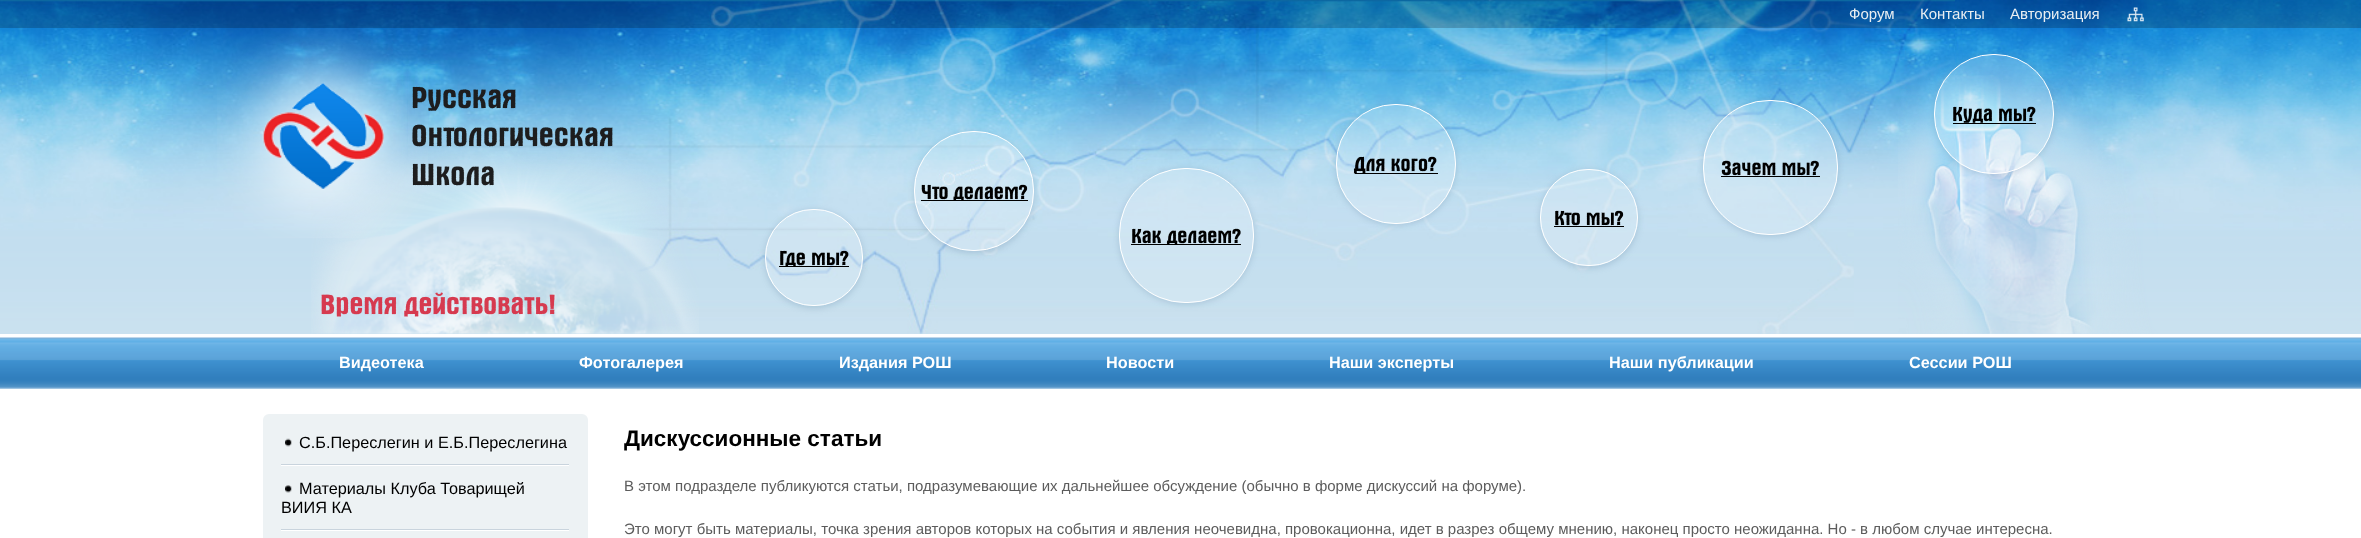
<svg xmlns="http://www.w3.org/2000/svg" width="2361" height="538">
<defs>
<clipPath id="clip1"><path d="M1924 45h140v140h-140zm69 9h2c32.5 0 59 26.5 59 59v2c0 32.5-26.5 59-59 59h-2c-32.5 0-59-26.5-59-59v-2c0-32.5 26.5-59 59-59z" clip-rule="evenodd"/></clipPath>
<clipPath id="clip2"><path d="M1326 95h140v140h-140zm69 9h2c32.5 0 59 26.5 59 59v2c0 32.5-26.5 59-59 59h-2c-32.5 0-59-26.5-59-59v-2c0-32.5 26.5-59 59-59z" clip-rule="evenodd"/></clipPath>
<clipPath id="clip3"><path d="M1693 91h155v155h-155zm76 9h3c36.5 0 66 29.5 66 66v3c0 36.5-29.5 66-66 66h-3c-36.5 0-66-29.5-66-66v-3c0-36.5 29.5-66 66-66z" clip-rule="evenodd"/></clipPath>
<clipPath id="clip4"><path d="M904 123h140v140h-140zm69 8h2c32.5 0 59 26.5 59 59v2c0 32.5-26.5 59-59 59h-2c-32.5 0-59-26.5-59-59v-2c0-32.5 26.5-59 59-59z" clip-rule="evenodd"/></clipPath>
<clipPath id="clip5"><path d="M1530 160h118v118h-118zm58 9h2c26.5 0 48 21.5 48 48v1c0 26.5-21.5 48-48 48h-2c-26.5 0-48-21.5-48-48v-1c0-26.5 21.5-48 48-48z" clip-rule="evenodd"/></clipPath>
<clipPath id="clip6"><path d="M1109 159h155v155h-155zm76 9h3c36.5 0 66 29.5 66 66v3c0 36.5-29.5 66-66 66h-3c-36.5 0-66-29.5-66-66v-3c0-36.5 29.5-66 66-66z" clip-rule="evenodd"/></clipPath>
<clipPath id="clip7"><path d="M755 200h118v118h-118zm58 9h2c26.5 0 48 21.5 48 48v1c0 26.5-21.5 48-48 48h-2c-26.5 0-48-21.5-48-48v-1c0-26.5 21.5-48 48-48z" clip-rule="evenodd"/></clipPath>
</defs>
<rect width="100%" height="100%" fill="#fff"/>
<image x="0" y="0" width="2361" height="230" href="media/1.png"/>
<image x="0" y="230" width="2361" height="104" href="media/2.png"/>
<image x="408" y="0" width="1547" height="160" href="media/3.png"/>
<rect width="2361" height="28" fill="#00000033"/>
<text x="1849" y="19" style="font-family:Liberation Sans;font-size:15px;fill:#eaeff2">Форум</text>
<text x="1920" y="19" style="font-family:Liberation Sans;font-size:15px;fill:#eaeff2">Контакты</text>
<text x="2010" y="19" style="font-family:Liberation Sans;font-size:15px;fill:#eaeff2">Авторизация</text>
<image x="2127" y="7" width="17" height="15" href="media/4.png"/>
<image x="434" y="160" width="1420" height="174" href="media/5.png"/>
<image x="1898" y="53" width="260" height="281" href="media/6.png"/>
<image x="311" y="147" width="388" height="187" href="media/8.png"/>
<image x="217" y="28" width="211" height="210" href="media/7.png"/>
<text x="411" y="108" style="font-family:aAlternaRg;font-size:30px;font-weight:600;fill:#1d1d1e">Русская</text>
<text x="411" y="146" style="font-family:aAlternaRg;font-size:30px;font-weight:600;fill:#1d1d1e">Онтологическая</text>
<text x="411" y="185" style="font-family:aAlternaRg;font-size:30px;font-weight:600;fill:#1d1d1e">Школа</text>
<g clip-path="url(#clip1)">
<rect x="1934" y="55" width="120" height="120" rx="59" fill="#6286a34d" filter="blur(3px)"/>
</g>
<rect x="1934.5" y="54.5" width="119" height="119" rx="58.5" fill="#ffffff33" stroke="#fff"/>
<text x="1952" y="121" style="font-family:aAlternaRg;font-size:20px;font-weight:600;fill:#000">Куда мы?</text>
<rect x="1953" y="123" width="83" height="1" fill="#000"/>
<g clip-path="url(#clip2)">
<rect x="1336" y="105" width="120" height="120" rx="59" fill="#6286a34d" filter="blur(3px)"/>
</g>
<rect x="1336.5" y="104.5" width="119" height="119" rx="58.5" fill="#ffffff33" stroke="#fff"/>
<rect x="1355" y="173" width="83" height="1" fill="#000"/>
<text x="1354" y="171" style="font-family:aAlternaRg;font-size:20px;font-weight:600;fill:#000">Для кого?</text>
<g clip-path="url(#clip3)">
<rect x="1703" y="101" width="135" height="135" rx="66" fill="#6286a34d" filter="blur(3px)"/>
</g>
<rect x="1703.5" y="100.5" width="134" height="134" rx="65.5" fill="#ffffff33" stroke="#fff"/>
<text x="1721" y="175" style="font-family:aAlternaRg;font-size:20px;font-weight:600;fill:#000">Зачем мы?</text>
<rect x="1721" y="176" width="99" height="1" fill="#000"/>
<g clip-path="url(#clip4)">
<rect x="914" y="133" width="120" height="120" rx="59" fill="#6286a34d" filter="blur(3px)"/>
</g>
<rect x="914.5" y="131.5" width="119" height="119" rx="58.5" fill="#ffffff33" stroke="#fff"/>
<rect x="921" y="200" width="107" height="1" fill="#000"/>
<text x="921" y="199" style="font-family:aAlternaRg;font-size:20px;font-weight:600;fill:#000">Что делаем?</text>
<g clip-path="url(#clip5)">
<rect x="1540" y="170" width="98" height="98" rx="48" fill="#6286a34d" filter="blur(3px)"/>
</g>
<rect x="1540.5" y="169.5" width="97" height="96" rx="47.5" fill="#ffffff33" stroke="#fff"/>
<text x="1554" y="225" style="font-family:aAlternaRg;font-size:20px;font-weight:600;fill:#000">Кто мы?</text>
<rect x="1554" y="226" width="70" height="1" fill="#000"/>
<g clip-path="url(#clip6)">
<rect x="1119" y="169" width="135" height="135" rx="66" fill="#6286a34d" filter="blur(3px)"/>
</g>
<rect x="1119.5" y="168.5" width="134" height="134" rx="65.5" fill="#ffffff33" stroke="#fff"/>
<rect x="1131" y="244" width="110" height="1" fill="#000"/>
<text x="1131" y="243" style="font-family:aAlternaRg;font-size:20px;font-weight:600;fill:#000">Как делаем?</text>
<g clip-path="url(#clip7)">
<rect x="765" y="210" width="98" height="98" rx="48" fill="#6286a34d" filter="blur(3px)"/>
</g>
<rect x="765.5" y="209.5" width="97" height="96" rx="47.5" fill="#ffffff33" stroke="#fff"/>
<rect x="779" y="266" width="70" height="1" fill="#000"/>
<text x="779" y="265" style="font-family:aAlternaRg;font-size:20px;font-weight:600;fill:#000">Где мы?</text>
<text x="320" y="314" style="font-family:aAlternaRg;font-size:27.5px;font-weight:600;fill:#d63a4f">Время действовать!</text>
<image x="0" y="337" width="2361" height="52" href="media/9.png"/>
<text x="339" y="368" style="font-family:Liberation Sans;font-size:16.25px;font-weight:bold;fill:#fff">Видеотека</text>
<text x="579" y="368" style="font-family:Liberation Sans;font-size:16.25px;font-weight:bold;fill:#fff">Фотогалерея</text>
<text x="839" y="368" style="font-family:Liberation Sans;font-size:16.25px;font-weight:bold;fill:#fff">Издания РОШ</text>
<text x="1106" y="368" style="font-family:Liberation Sans;font-size:16.25px;font-weight:bold;fill:#fff">Новости</text>
<text x="1329" y="368" style="font-family:Liberation Sans;font-size:16.25px;font-weight:bold;fill:#fff">Наши эксперты</text>
<text x="1609" y="368" style="font-family:Liberation Sans;font-size:16.25px;font-weight:bold;fill:#fff">Наши публикации</text>
<text x="1909" y="368" style="font-family:Liberation Sans;font-size:16.25px;font-weight:bold;fill:#fff">Сессии РОШ</text>
<rect x="263" y="414" width="325" height="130" rx="6" fill="#edf2f4"/>
<rect x="281" y="464" width="288" height="1" fill="#c9d4dd"/>
<image x="285" y="438" width="7" height="9" href="media/10.png"/>
<text x="299" y="448" style="font-family:Liberation Sans;font-size:16.25px;fill:#000">С.Б.Переслегин и Е.Б.Переслегина</text>
<rect x="281" y="465" width="288" height="1" fill="#fff"/>
<rect x="281" y="529" width="288" height="1" fill="#c9d4dd"/>
<image x="285" y="485" width="7" height="8" href="media/11.png"/>
<text x="299" y="494" style="font-family:Liberation Sans;font-size:16.25px;fill:#000">Материалы Клуба Товарищей</text>
<text x="281" y="513" style="font-family:Liberation Sans;font-size:16.25px;fill:#000">ВИИЯ КА</text>
<rect x="281" y="530" width="288" height="1" fill="#fff"/>
<text x="624" y="446" style="font-family:Liberation Sans;font-size:22.5px;font-weight:bold;fill:#000">Дискуссионные статьи</text>
<text x="624" y="491" style="font-family:Liberation Sans;font-size:15px;fill:#5c5c5c">В этом подразделе публикуются статьи, подразумевающие их дальнейшее обсуждение (обычно в форме дискуссий на форуме).</text>
<text x="624" y="534" style="font-family:Liberation Sans;font-size:15px;fill:#5c5c5c">Это могут быть материалы, точка зрения авторов которых на события и явления неочевидна, провокационна, идет в разрез общему мнению, наконец просто неожиданна. Но - в любом случае интересна.</text>
</svg>
